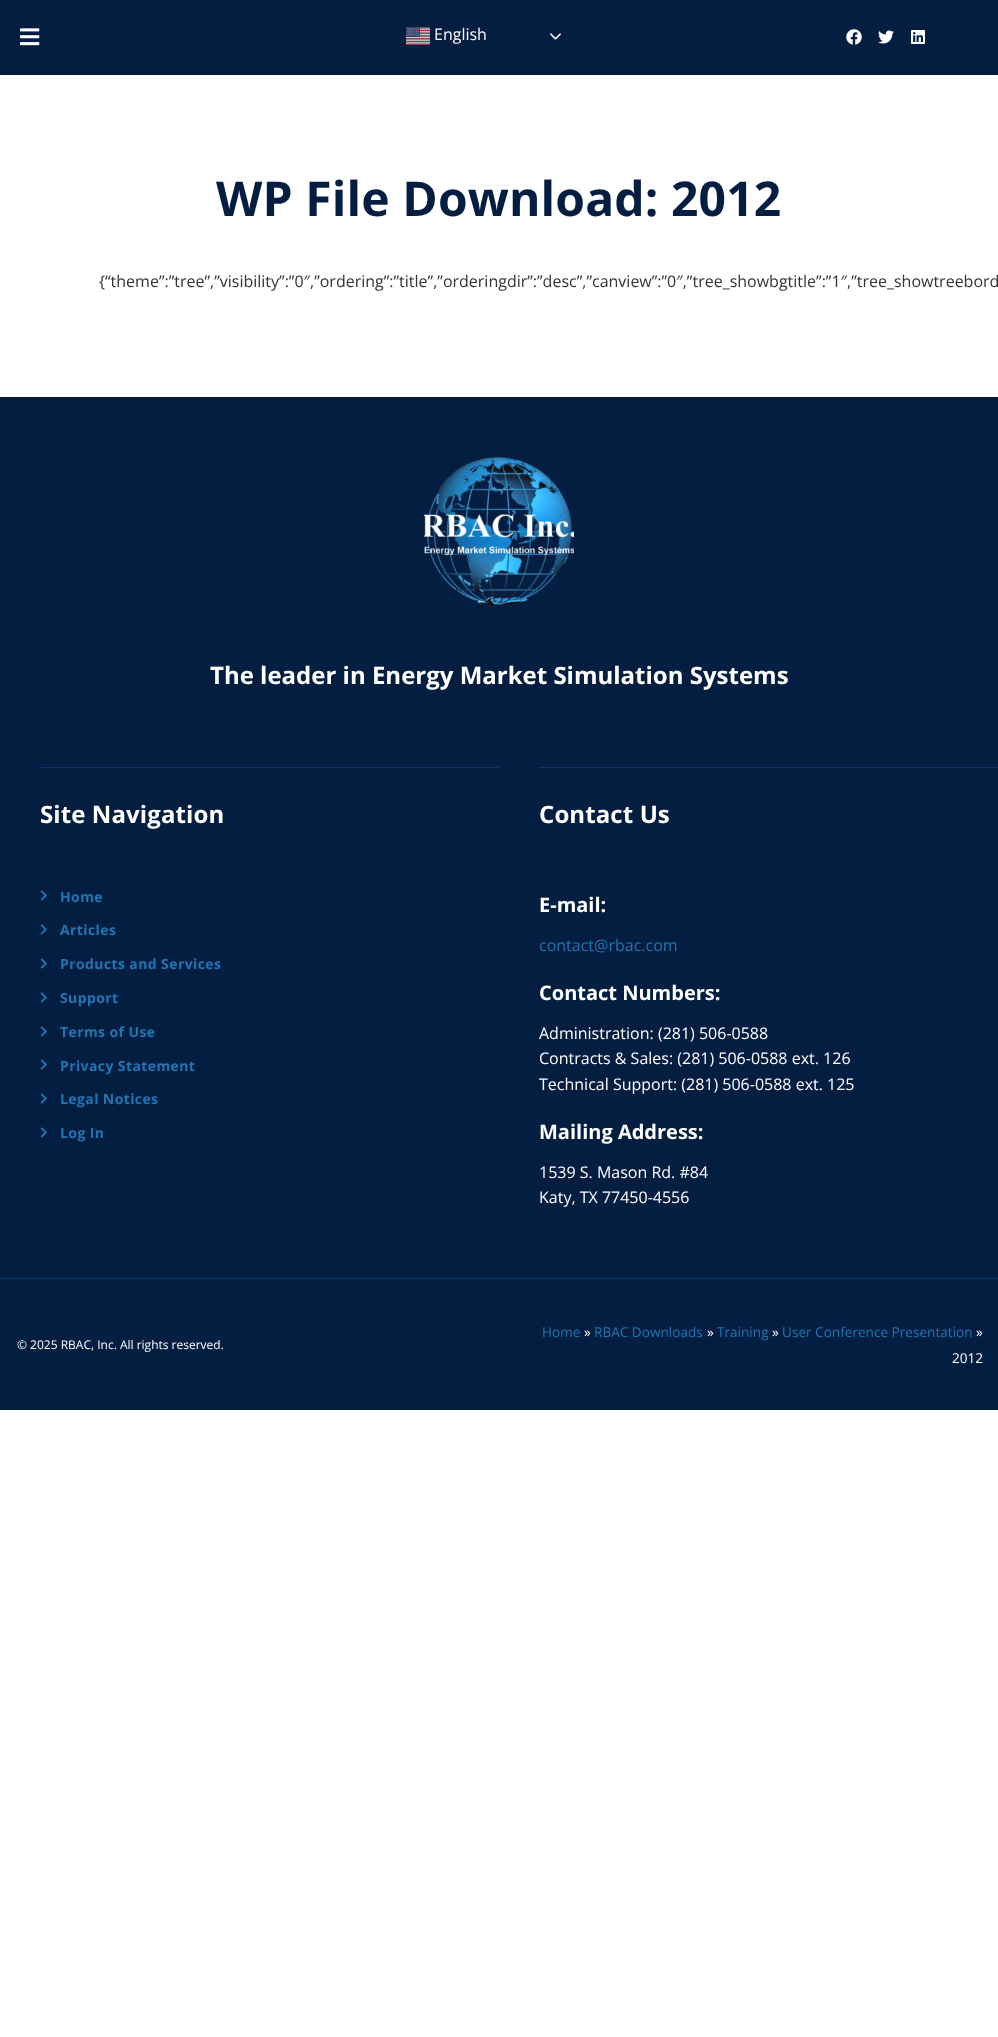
<svg xmlns="http://www.w3.org/2000/svg" width="998" height="2037">
<rect width="100%" height="100%" fill="#fff"/>
<rect width="998" height="75" fill="#041e42"/>
<image x="20" y="28" width="20" height="18" href="media/1.png"/>
<image x="406" y="27" width="24" height="18" href="media/2.png"/>
<text x="434" y="40" style="font-family:Open Sans;font-size:16px;fill:#fff">English</text>
<image x="550" y="33" width="11" height="7" href="media/3.png"/>
<image x="846" y="29" width="16" height="16" href="media/4.png"/>
<image x="878" y="30" width="16" height="14" href="media/5.png"/>
<image x="911" y="30" width="14" height="14" href="media/6.png"/>
<text x="216" y="216" style="font-family:Open Sans;font-size:48px;font-weight:bold;letter-spacing:0.1px;fill:#041e42">WP File Download: 2012</text>
<text x="99" y="287" style="font-family:Open Sans;font-size:16px;fill:#333">{“theme”:”tree”,”visibility”:”0″,”ordering”:”title”,”orderingdir”:”desc”,”canview”:”0″,”tree_showbgtitle”:”1″,”tree_showtreebord</text>
<rect y="397" width="998" height="881" fill="#041e42"/>
<image x="424" y="457" width="150" height="150" href="media/7.png"/>
<text x="210" y="684" style="font-family:Open Sans;font-size:24px;font-weight:bold;fill:#fff">The leader in Energy Market Simulation Systems</text>
<rect x="40" y="767" width="459" height="1" fill="#073472"/>
<text x="40" y="823" style="font-family:Open Sans;font-size:24px;font-weight:bold;letter-spacing:0.1px;fill:#fff">Site Navigation</text>
<image x="40" y="890" width="7" height="11" href="media/8.png"/>
<text x="60" y="902" style="font-family:Open Sans;font-size:14px;font-weight:bold;letter-spacing:0.4px;fill:#2076b4">Home</text>
<image x="40" y="924" width="7" height="11" href="media/8.png"/>
<text x="60" y="935" style="font-family:Open Sans;font-size:14px;font-weight:bold;letter-spacing:0.4px;fill:#2076b4">Articles</text>
<image x="40" y="958" width="7" height="11" href="media/8.png"/>
<text x="60" y="969" style="font-family:Open Sans;font-size:14px;font-weight:bold;letter-spacing:0.4px;fill:#2076b4">Products and Services</text>
<image x="40" y="992" width="7" height="11" href="media/8.png"/>
<text x="60" y="1003" style="font-family:Open Sans;font-size:14px;font-weight:bold;letter-spacing:0.4px;fill:#2076b4">Support</text>
<image x="40" y="1026" width="7" height="11" href="media/8.png"/>
<text x="60" y="1037" style="font-family:Open Sans;font-size:14px;font-weight:bold;letter-spacing:0.4px;fill:#2076b4">Terms of Use</text>
<image x="40" y="1059" width="7" height="11" href="media/8.png"/>
<text x="60" y="1071" style="font-family:Open Sans;font-size:14px;font-weight:bold;letter-spacing:0.4px;fill:#2076b4">Privacy Statement</text>
<image x="40" y="1093" width="7" height="11" href="media/8.png"/>
<text x="60" y="1104" style="font-family:Open Sans;font-size:14px;font-weight:bold;letter-spacing:0.4px;fill:#2076b4">Legal Notices</text>
<image x="40" y="1127" width="7" height="11" href="media/8.png"/>
<text x="60" y="1138" style="font-family:Open Sans;font-size:14px;font-weight:bold;letter-spacing:0.4px;fill:#2076b4">Log In</text>
<rect x="539" y="767" width="459" height="1" fill="#073472"/>
<text x="539" y="823" style="font-family:Open Sans;font-size:24px;font-weight:bold;letter-spacing:0.1px;fill:#fff">Contact Us</text>
<text x="539" y="912" style="font-family:Open Sans;font-size:20px;font-weight:bold;fill:#fff">E-mail:</text>
<text x="539" y="951" style="font-family:Open Sans;font-size:16px;fill:#2076b4">contact@rbac.com</text>
<text x="539" y="1000" style="font-family:Open Sans;font-size:20px;font-weight:bold;fill:#fff">Contact Numbers:</text>
<text x="539" y="1039" style="font-family:Open Sans;font-size:16px;fill:#fff">Administration: (281) 506-0588</text>
<text x="539" y="1064" style="font-family:Open Sans;font-size:16px;fill:#fff">Contracts &amp; Sales: (281) 506-0588 ext. 126</text>
<text x="539" y="1090" style="font-family:Open Sans;font-size:16px;fill:#fff">Technical Support: (281) 506-0588 ext. 125</text>
<text x="539" y="1139" style="font-family:Open Sans;font-size:20px;font-weight:bold;fill:#fff">Mailing Address:</text>
<text x="539" y="1178" style="font-family:Open Sans;font-size:16px;fill:#fff">1539 S. Mason Rd. #84</text>
<text x="539" y="1203" style="font-family:Open Sans;font-size:16px;fill:#fff">Katy, TX 77450-4556</text>
<rect y="1279" width="998" height="131" fill="#041e42"/>
<rect y="1278" width="998" height="1" fill="#073472"/>
<text x="17" y="1349" style="font-family:Open Sans;font-size:12px;fill:#fff">© 2025 RBAC, Inc. All rights reserved.</text>
<text x="542" y="1337" style="font-family:Open Sans;font-size:13.6px;fill:#2076b4">Home</text>
<text x="584" y="1337" style="font-family:Open Sans;font-size:13.6px;fill:#fff">»</text>
<text x="594" y="1337" style="font-family:Open Sans;font-size:13.6px;fill:#2076b4">RBAC Downloads</text>
<text x="707" y="1337" style="font-family:Open Sans;font-size:13.6px;fill:#fff">»</text>
<text x="717" y="1337" style="font-family:Open Sans;font-size:13.6px;fill:#2076b4">Training</text>
<text x="772" y="1337" style="font-family:Open Sans;font-size:13.6px;fill:#fff">»</text>
<text x="782" y="1337" style="font-family:Open Sans;font-size:13.6px;fill:#2076b4">User Conference Presentation</text>
<text x="976" y="1337" style="font-family:Open Sans;font-size:13.6px;fill:#fff">»</text>
<text x="952" y="1363" style="font-family:Open Sans;font-size:13.6px;fill:#fff">2012</text>
</svg>
